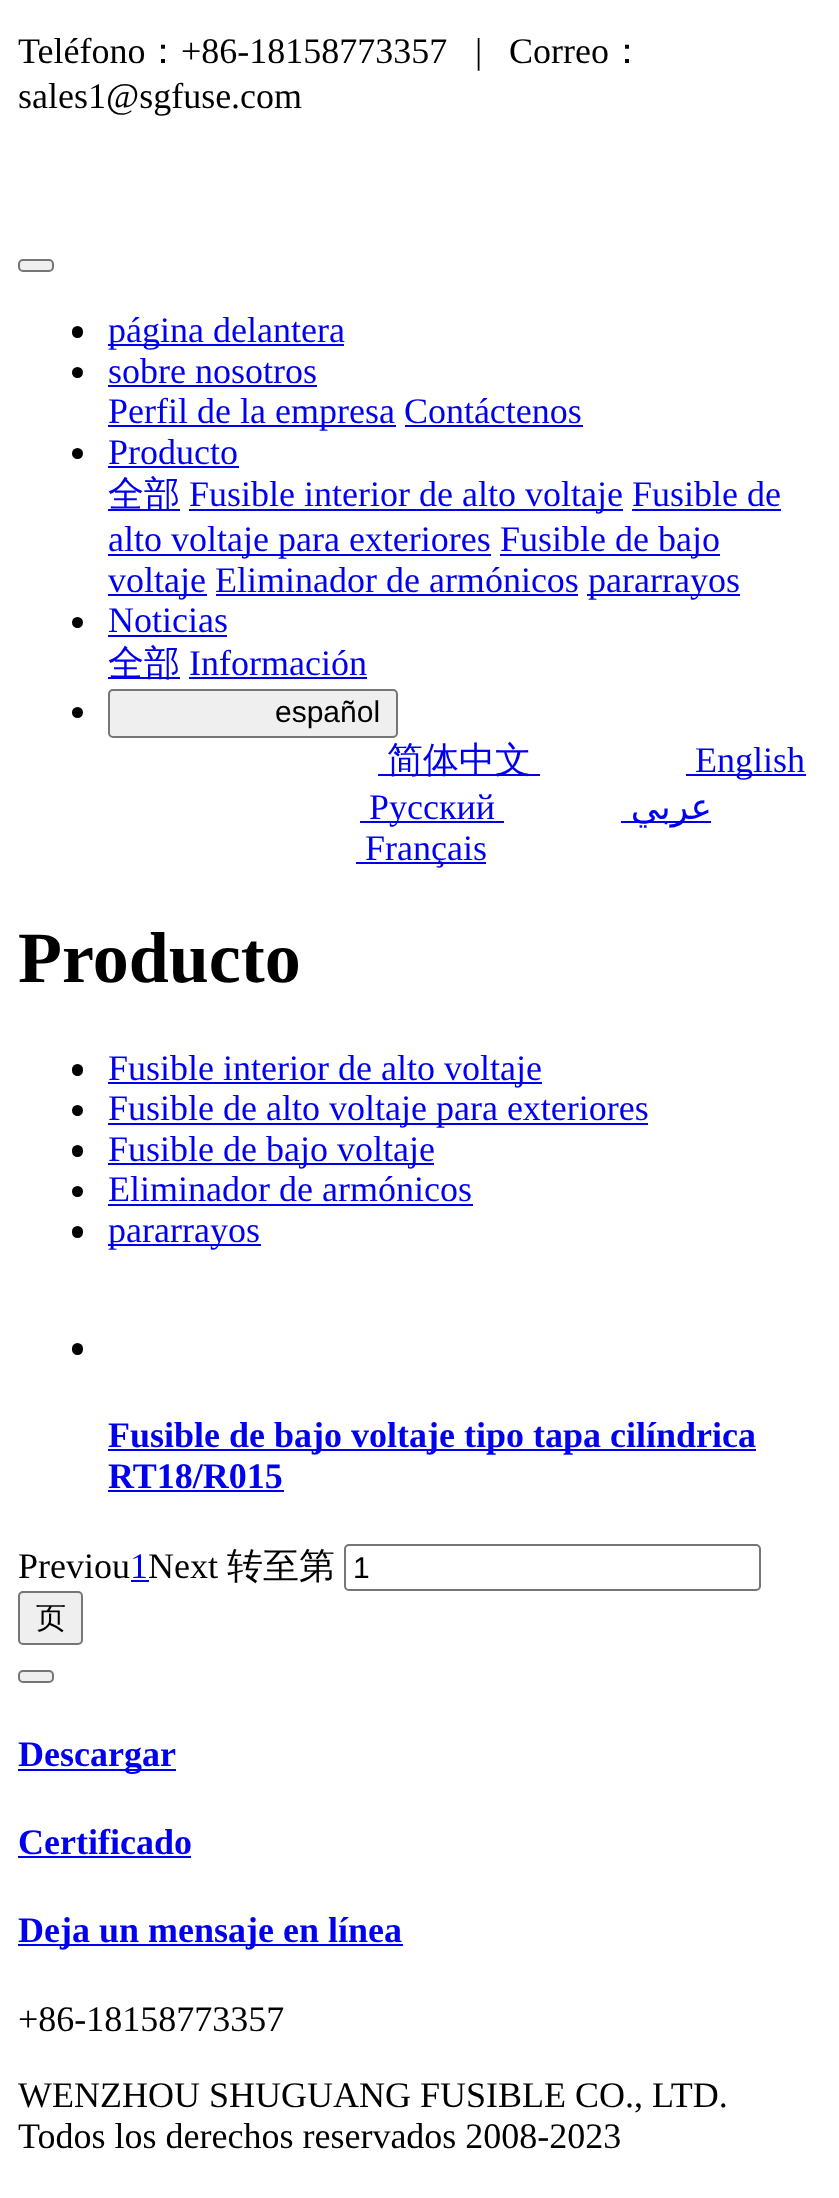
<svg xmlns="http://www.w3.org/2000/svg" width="839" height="2198">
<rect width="100%" height="100%" fill="#fff"/>
<text x="18" y="63" style="font-family:Liberation Serif;font-size:36px;fill:#000">Teléfono</text>
<text x="145" y="63" style="font-family:WenQuanYi Zen Hei;font-size:36px;font-weight:500;fill:#000">：</text>
<text x="181" y="63" style="font-family:Liberation Serif;font-size:36px;fill:#000">+86-18158773357</text>
<text x="475" y="63" style="font-family:Liberation Serif;font-size:36px;fill:#000">|</text>
<text x="509" y="63" style="font-family:Liberation Serif;font-size:36px;fill:#000">Correo</text>
<text x="609" y="63" style="font-family:WenQuanYi Zen Hei;font-size:36px;font-weight:500;fill:#000">：</text>
<text x="18" y="108" style="font-family:Liberation Serif;font-size:36px;fill:#000">sales1@sgfuse.com</text>
<rect x="19" y="260" width="34" height="11" rx="4" fill="#efefef" stroke="#767676" stroke-width="2"/>
<rect x="72" y="326" width="11" height="12" rx="5.5" fill="#000"/>
<rect x="108" y="344" width="236" height="2" fill="#00e"/>
<text x="108" y="342" style="font-family:Liberation Serif;font-size:36px;fill:#00e">página delantera</text>
<circle cx="77.5" cy="372.5" r="5.5" fill="#000"/>
<text x="108" y="383" style="font-family:Liberation Serif;font-size:36px;fill:#00e">sobre nosotros</text>
<rect x="108" y="385" width="209" height="2" fill="#00e"/>
<rect x="108" y="425" width="288" height="2" fill="#00e"/>
<text x="108" y="423" style="font-family:Liberation Serif;font-size:36px;fill:#00e">Perfil de la empresa Contáctenos</text>
<rect x="405" y="425" width="178" height="2" fill="#00e"/>
<circle cx="77.5" cy="453.5" r="5.5" fill="#000"/>
<text x="108" y="464" style="font-family:Liberation Serif;font-size:36px;fill:#00e">Producto</text>
<rect x="108" y="466" width="131" height="2" fill="#00e"/>
<rect x="108" y="509" width="72" height="2" fill="#00e"/>
<text x="108" y="506" style="font-family:WenQuanYi Zen Hei;font-size:36px;font-weight:500;fill:#00e">全部</text>
<rect x="189" y="509" width="434" height="2" fill="#00e"/>
<text x="189" y="506" style="font-family:Liberation Serif;font-size:36px;fill:#00e">Fusible interior de alto voltaje Fusible de</text>
<rect x="108" y="554" width="383" height="2" fill="#00e"/>
<text x="108" y="551" style="font-family:Liberation Serif;font-size:36px;fill:#00e">alto voltaje para exteriores</text>
<rect x="632" y="509" width="149" height="2" fill="#00e"/>
<rect x="500" y="554" width="220" height="2" fill="#00e"/>
<text x="500" y="551" style="font-family:Liberation Serif;font-size:36px;fill:#00e">Fusible de bajo</text>
<rect x="108" y="594" width="99" height="2" fill="#00e"/>
<text x="108" y="592" style="font-family:Liberation Serif;font-size:36px;fill:#00e">voltaje Eliminador de armónicos</text>
<rect x="587" y="594" width="153" height="2" fill="#00e"/>
<text x="588" y="592" style="font-family:Liberation Serif;font-size:36px;fill:#00e">pararrayos</text>
<rect x="216" y="594" width="362" height="2" fill="#00e"/>
<circle cx="77.5" cy="622.5" r="5.5" fill="#000"/>
<text x="108" y="632" style="font-family:Liberation Serif;font-size:36px;fill:#00e">Noticias</text>
<rect x="108" y="635" width="119" height="2" fill="#00e"/>
<rect x="108" y="677" width="72" height="2" fill="#00e"/>
<text x="108" y="675" style="font-family:WenQuanYi Zen Hei;font-size:36px;font-weight:500;fill:#00e">全部</text>
<text x="189" y="675" style="font-family:Liberation Serif;font-size:36px;fill:#00e">Información</text>
<rect x="189" y="677" width="178" height="2" fill="#00e"/>
<circle cx="77.5" cy="712.5" r="5.5" fill="#000"/>
<rect x="109" y="690" width="288" height="47" rx="4" fill="#efefef" stroke="#767676" stroke-width="2"/>
<text x="275" y="722" style="font-family:Liberation Sans;font-size:30px;fill:#000">español</text>
<rect x="378" y="774" width="162" height="2" fill="#00e"/>
<text x="387" y="772" style="font-family:WenQuanYi Zen Hei;font-size:36px;font-weight:500;fill:#00e">简体中文</text>
<rect x="686" y="774" width="120" height="2" fill="#00e"/>
<text x="695" y="772" style="font-family:Liberation Serif;font-size:36px;fill:#00e">English</text>
<rect x="360" y="821" width="144" height="2" fill="#00e"/>
<text x="369" y="819" style="font-family:Liberation Serif;font-size:36px;fill:#00e">Русский</text>
<rect x="621" y="821" width="90" height="2" fill="#00e"/>
<text x="712" y="819" style="font-family:DejaVu Sans;font-size:36px;direction:rtl;fill:#00e">عربي</text>
<rect x="356" y="862" width="130" height="2" fill="#00e"/>
<text x="365" y="860" style="font-family:Liberation Serif;font-size:36px;fill:#00e">Français</text>
<text x="18" y="982" style="font-family:Liberation Serif;font-size:72px;font-weight:bold;fill:#000">Producto</text>
<rect x="72" y="1064" width="11" height="12" rx="5.5" fill="#000"/>
<rect x="108" y="1082" width="434" height="2" fill="#00e"/>
<text x="108" y="1080" style="font-family:Liberation Serif;font-size:36px;fill:#00e">Fusible interior de alto voltaje</text>
<circle cx="77.5" cy="1110.5" r="5.5" fill="#000"/>
<rect x="108" y="1123" width="540" height="2" fill="#00e"/>
<text x="108" y="1120" style="font-family:Liberation Serif;font-size:36px;fill:#00e">Fusible de alto voltaje para exteriores</text>
<rect x="72" y="1145" width="11" height="12" rx="5.5" fill="#000"/>
<rect x="108" y="1163" width="326" height="2" fill="#00e"/>
<text x="108" y="1161" style="font-family:Liberation Serif;font-size:36px;fill:#00e">Fusible de bajo voltaje</text>
<circle cx="77.5" cy="1191.5" r="5.5" fill="#000"/>
<text x="108" y="1201" style="font-family:Liberation Serif;font-size:36px;fill:#00e">Eliminador de armónicos</text>
<rect x="108" y="1204" width="365" height="2" fill="#00e"/>
<rect x="72" y="1226" width="11" height="12" rx="5.5" fill="#000"/>
<rect x="108" y="1244" width="153" height="2" fill="#00e"/>
<text x="108" y="1242" style="font-family:Liberation Serif;font-size:36px;fill:#00e">pararrayos</text>
<rect x="72" y="1343" width="11" height="12" rx="5.5" fill="#000"/>
<rect x="108" y="1449" width="648" height="2" fill="#00e"/>
<text x="108" y="1447" style="font-family:Liberation Serif;font-size:36px;font-weight:bold;fill:#00e">Fusible de bajo voltaje tipo tapa cilíndrica</text>
<text x="108" y="1488" style="font-family:Liberation Serif;font-size:36px;font-weight:bold;fill:#00e">RT18/R015</text>
<rect x="108" y="1490" width="176" height="2" fill="#00e"/>
<text x="18" y="1578" style="font-family:Liberation Serif;font-size:36px;fill:#000">Previou</text>
<text x="130" y="1578" style="font-family:Liberation Serif;font-size:36px;fill:#00e">1</text>
<rect x="131" y="1580" width="18" height="2" fill="#00e"/>
<text x="148" y="1578" style="font-family:Liberation Serif;font-size:36px;fill:#000">Next</text>
<text x="227" y="1578" style="font-family:WenQuanYi Zen Hei;font-size:36px;font-weight:500;fill:#000">转至第</text>
<rect x="345" y="1545" width="415" height="45" rx="4" fill="none" stroke="#767676" stroke-width="2"/>
<text x="353" y="1578" style="font-family:Liberation Sans;font-size:30px;fill:#000">1</text>
<rect x="19" y="1592" width="63" height="52" rx="4" fill="#efefef" stroke="#767676" stroke-width="2"/>
<text x="36" y="1628" style="font-family:WenQuanYi Zen Hei;font-size:30px;font-weight:500;fill:#000">页</text>
<rect x="19" y="1671" width="34" height="11" rx="4" fill="#efefef" stroke="#767676" stroke-width="2"/>
<rect x="18" y="1769" width="158" height="2" fill="#00e"/>
<text x="18" y="1766" style="font-family:Liberation Serif;font-size:36px;font-weight:bold;fill:#00e">Descargar</text>
<text x="18" y="1854" style="font-family:Liberation Serif;font-size:36px;font-weight:bold;fill:#00e">Certificado</text>
<rect x="18" y="1856" width="173" height="2" fill="#00e"/>
<rect x="18" y="1944" width="385" height="2" fill="#00e"/>
<text x="18" y="1942" style="font-family:Liberation Serif;font-size:36px;font-weight:bold;fill:#00e">Deja un mensaje en línea</text>
<text x="18" y="2031" style="font-family:Liberation Serif;font-size:36px;fill:#000">+86-18158773357</text>
<text x="18" y="2107" style="font-family:Liberation Serif;font-size:36px;fill:#000">WENZHOU SHUGUANG FUSIBLE CO., LTD.</text>
<text x="18" y="2148" style="font-family:Liberation Serif;font-size:36px;fill:#000">Todos los derechos reservados 2008-2023</text>
</svg>
